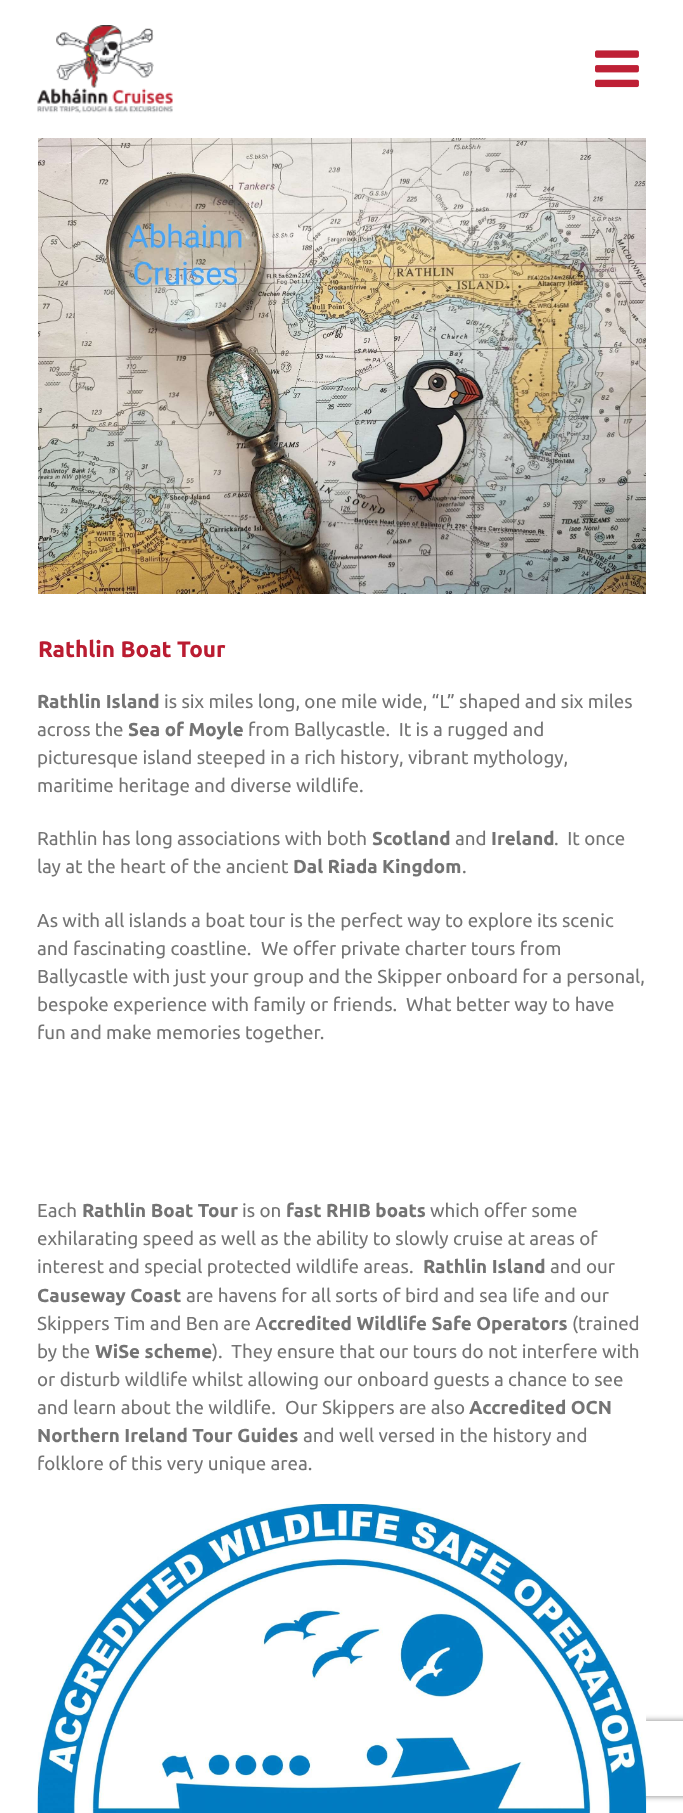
<svg xmlns="http://www.w3.org/2000/svg" width="683" height="1813">
<defs>
<clipPath id="clip1"><path d="M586 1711h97v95h-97zm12.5 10h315c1.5 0 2.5 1 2.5 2.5v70c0 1.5-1 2.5-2.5 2.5h-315c-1.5 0-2.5-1-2.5-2.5v-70c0-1.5 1-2.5 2.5-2.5z" clip-rule="evenodd"/></clipPath>
</defs>
<rect width="100%" height="100%" fill="#fff"/>
<image x="37" y="25" width="136" height="88" href="media/1.png"/>
<image x="595" y="50" width="44" height="38" href="media/2.png"/>
<image x="38" y="138" width="608" height="456" href="media/3.png"/>
<text x="38" y="657" style="font-family:Ubuntu;font-size:22.5px;font-weight:bold;fill:#ba1c31">Rathlin Boat Tour</text>
<text x="37" y="708" style="font-family:Ubuntu;font-size:18.75px;font-weight:bold;fill:#747474">Rathlin Island</text>
<text x="164" y="708" style="font-family:Ubuntu;font-size:18.75px;fill:#747474">is six miles long, one mile wide, “L” shaped and six miles</text>
<text x="37" y="736" style="font-family:Ubuntu;font-size:18.75px;fill:#747474">across the</text>
<text x="128" y="736" style="font-family:Ubuntu;font-size:18.75px;font-weight:bold;fill:#747474">Sea of Moyle</text>
<text x="248" y="736" style="font-family:Ubuntu;font-size:18.75px;fill:#747474" xml:space="preserve">from Ballycastle.  It is a rugged and</text>
<text x="37" y="764" style="font-family:Ubuntu;font-size:18.75px;fill:#747474">picturesque island steeped in a rich history, vibrant mythology,</text>
<text x="37" y="792" style="font-family:Ubuntu;font-size:18.75px;fill:#747474">maritime heritage and diverse wildlife.</text>
<text x="37" y="845" style="font-family:Ubuntu;font-size:18.75px;fill:#747474">Rathlin has long associations with both</text>
<text x="372" y="845" style="font-family:Ubuntu;font-size:18.75px;font-weight:bold;fill:#747474">Scotland</text>
<text x="455" y="845" style="font-family:Ubuntu;font-size:18.75px;fill:#747474">and</text>
<text x="491" y="845" style="font-family:Ubuntu;font-size:18.75px;font-weight:bold;fill:#747474">Ireland</text>
<text x="554" y="845" style="font-family:Ubuntu;font-size:18.75px;fill:#747474" xml:space="preserve">.  It once</text>
<text x="37" y="873" style="font-family:Ubuntu;font-size:18.75px;fill:#747474">lay at the heart of the ancient</text>
<text x="293" y="873" style="font-family:Ubuntu;font-size:18.75px;font-weight:bold;fill:#747474">Dal Riada Kingdom</text>
<text x="462" y="873" style="font-family:Ubuntu;font-size:18.75px;fill:#747474">.</text>
<text x="37" y="927" style="font-family:Ubuntu;font-size:18.75px;fill:#747474">As with all islands a boat tour is the perfect way to explore its scenic</text>
<text x="37" y="955" style="font-family:Ubuntu;font-size:18.75px;fill:#747474">and fascinating coastline.</text>
<text x="261" y="955" style="font-family:Ubuntu;font-size:18.75px;fill:#747474">We offer private charter tours from</text>
<text x="37" y="983" style="font-family:Ubuntu;font-size:18.75px;fill:#747474">Ballycastle with just your group and the Skipper onboard for a personal,</text>
<text x="37" y="1011" style="font-family:Ubuntu;font-size:18.75px;fill:#747474">bespoke experience with family or friends.</text>
<text x="406" y="1011" style="font-family:Ubuntu;font-size:18.75px;fill:#747474">What better way to have</text>
<text x="37" y="1039" style="font-family:Ubuntu;font-size:18.75px;fill:#747474">fun and make memories together.</text>
<text x="37" y="1217" style="font-family:Ubuntu;font-size:18.75px;fill:#747474">Each</text>
<text x="82" y="1217" style="font-family:Ubuntu;font-size:18.75px;font-weight:bold;fill:#747474">Rathlin Boat Tour</text>
<text x="242" y="1217" style="font-family:Ubuntu;font-size:18.75px;fill:#747474">is on</text>
<text x="286" y="1217" style="font-family:Ubuntu;font-size:18.75px;font-weight:bold;fill:#747474">fast RHIB boats</text>
<text x="430" y="1217" style="font-family:Ubuntu;font-size:18.75px;fill:#747474">which offer some</text>
<text x="37" y="1245" style="font-family:Ubuntu;font-size:18.75px;fill:#747474">exhilarating speed as well as the ability to slowly cruise at areas of</text>
<text x="37" y="1273" style="font-family:Ubuntu;font-size:18.75px;fill:#747474">interest and special protected wildlife areas.</text>
<text x="423" y="1273" style="font-family:Ubuntu;font-size:18.75px;font-weight:bold;fill:#747474">Rathlin Island</text>
<text x="550" y="1273" style="font-family:Ubuntu;font-size:18.75px;fill:#747474">and our</text>
<text x="37" y="1302" style="font-family:Ubuntu;font-size:18.75px;font-weight:bold;fill:#747474">Causeway Coast</text>
<text x="186" y="1302" style="font-family:Ubuntu;font-size:18.75px;fill:#747474">are havens for all sorts of bird and sea life and our</text>
<text x="37" y="1330" style="font-family:Ubuntu;font-size:18.75px;fill:#747474">Skippers Tim and Ben are A</text>
<text x="268" y="1330" style="font-family:Ubuntu;font-size:18.75px;font-weight:bold;fill:#747474">ccredited Wildlife Safe Operators</text>
<text x="572" y="1330" style="font-family:Ubuntu;font-size:18.75px;fill:#747474">(trained</text>
<text x="37" y="1358" style="font-family:Ubuntu;font-size:18.75px;fill:#747474">by the</text>
<text x="95" y="1358" style="font-family:Ubuntu;font-size:18.75px;font-weight:bold;fill:#747474">WiSe scheme</text>
<text x="212" y="1358" style="font-family:Ubuntu;font-size:18.75px;fill:#747474" xml:space="preserve">).  They ensure that our tours do not interfere with</text>
<text x="37" y="1386" style="font-family:Ubuntu;font-size:18.75px;fill:#747474">or disturb wildlife whilst allowing our onboard guests a chance to see</text>
<text x="37" y="1414" style="font-family:Ubuntu;font-size:18.75px;fill:#747474">and learn about the wildlife.</text>
<text x="285" y="1414" style="font-family:Ubuntu;font-size:18.75px;fill:#747474">Our Skippers are also</text>
<text x="469" y="1414" style="font-family:Ubuntu;font-size:18.75px;font-weight:bold;fill:#747474">Accredited OCN</text>
<text x="37" y="1442" style="font-family:Ubuntu;font-size:18.75px;font-weight:bold;fill:#747474">Northern Ireland Tour Guides</text>
<text x="303" y="1442" style="font-family:Ubuntu;font-size:18.75px;fill:#747474">and well versed in the history and</text>
<text x="37" y="1470" style="font-family:Ubuntu;font-size:18.75px;fill:#747474">folklore of this very unique area.</text>
<g clip-path="url(#clip1)">
<rect x="596" y="1721" width="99" height="75" rx="2.5" fill="#808080" filter="blur(3px)"/>
</g>
<image x="37" y="1503" width="610" height="310" href="media/4.png"/>
</svg>
